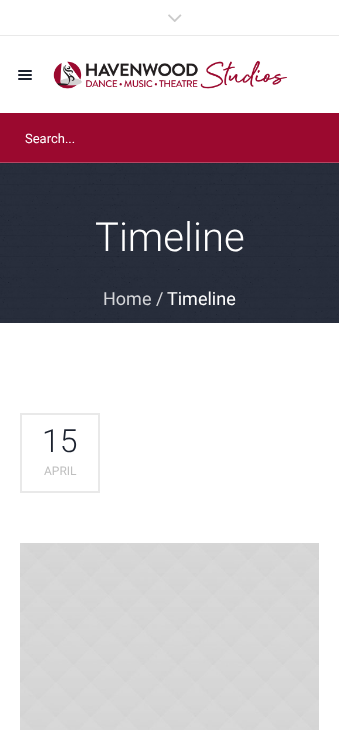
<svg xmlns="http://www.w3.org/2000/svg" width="339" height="746">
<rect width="100%" height="100%" fill="#fff"/>
<rect y="35" width="339" height="1" fill="#e9e9e9"/>
<image x="168" y="14" width="14" height="8" href="media/1.png"/>
<image x="18" y="70" width="14" height="10" href="media/2.png"/>
<image x="53" y="60" width="235" height="29" href="media/3.png"/>
<rect y="113" width="339" height="49" fill="#9b092f"/>
<text x="25" y="143" style="font-family:Roboto;font-size:13px;fill:#fff">Search...</text>
<rect y="162" width="339" height="1" fill="#b44763"/>
<image x="0" y="163" width="339" height="160" href="media/4.png"/>
<text x="95" y="251" style="font-family:Roboto;font-size:40px;font-weight:300;fill:#fff">Timeline</text>
<text x="103" y="305" style="font-family:Roboto;font-size:18px;fill:#d4d5d8">Home /</text>
<text x="167" y="305" style="font-family:Roboto;font-size:18px;fill:#fff">Timeline</text>
<rect x="21" y="414" width="78" height="78" fill="none" stroke="#e9e9e9" stroke-width="2"/>
<text x="42" y="452" style="font-family:Roboto;font-size:32px;font-weight:300;fill:#1c222f">15</text>
<text x="44" y="475" style="font-family:Roboto;font-size:12px;fill:#bfbfbf">APRIL</text>
<image x="20" y="543" width="299" height="187" href="media/5.png"/>
</svg>
